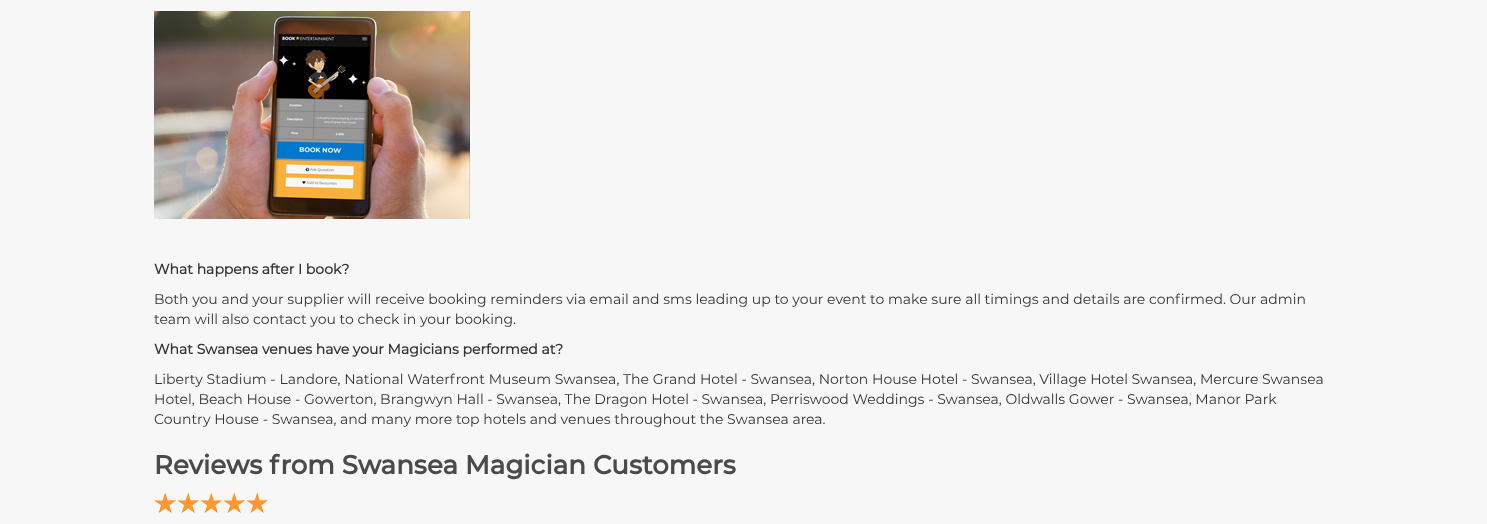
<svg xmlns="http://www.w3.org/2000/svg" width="1487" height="524">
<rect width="100%" height="100%" fill="#f7f7f7"/>
<image x="154" y="11" width="316" height="208" href="media/1.png"/>
<text x="154" y="274" style="font-family:Montserrat;font-size:14px;font-weight:bold;fill:#333">What happens after I book?</text>
<text x="154" y="304" style="font-family:Montserrat;font-size:14px;fill:#333">Both you and your supplier will receive booking reminders via email and sms leading up to your event to make sure all timings and details are confirmed. Our admin</text>
<text x="154" y="324" style="font-family:Montserrat;font-size:14px;fill:#333">team will also contact you to check in your booking.</text>
<text x="154" y="354" style="font-family:Montserrat;font-size:14px;font-weight:bold;fill:#333">What Swansea venues have your Magicians performed at?</text>
<text x="154" y="384" style="font-family:Montserrat;font-size:14px;fill:#333">Liberty Stadium - Landore, National Waterfront Museum Swansea, The Grand Hotel - Swansea, Norton House Hotel - Swansea, Village Hotel Swansea, Mercure Swansea</text>
<text x="154" y="404" style="font-family:Montserrat;font-size:14px;fill:#333">Hotel, Beach House - Gowerton, Brangwyn Hall - Swansea, The Dragon Hotel - Swansea, Perriswood Weddings - Swansea, Oldwalls Gower - Swansea, Manor Park</text>
<text x="154" y="424" style="font-family:Montserrat;font-size:14px;fill:#333">Country House - Swansea, and many more top hotels and venues throughout the Swansea area.</text>
<text x="154" y="474" style="font-family:'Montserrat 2';font-size:26px;font-weight:bold;fill:#4a4a4a">Reviews from Swansea Magician Customers</text>
<image x="154" y="492" width="114" height="22" href="media/2.png"/>
</svg>
